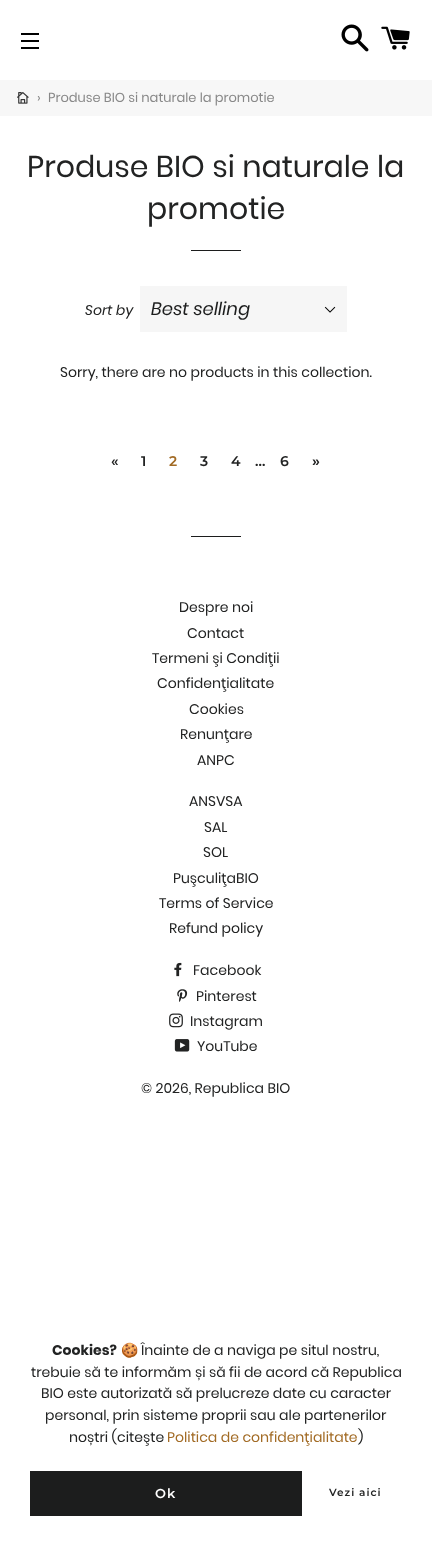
<svg xmlns="http://www.w3.org/2000/svg" width="432" height="1545">
<rect width="100%" height="100%" fill="#fff"/>
<rect x="21" y="33" width="18" height="2" fill="#000"/>
<rect x="21" y="40" width="18" height="2" fill="#000"/>
<rect x="21" y="47" width="18" height="2" fill="#000"/>
<image x="341" y="24" width="28" height="28" href="media/1.png"/>
<image x="381" y="26" width="29" height="24" href="media/2.png"/>
<rect y="80" width="432" height="36" fill="#f7f7f7"/>
<image x="17" y="92" width="12" height="12" href="media/3.png"/>
<text x="37" y="102" style="font-family:Poppins;font-size:13px;fill:#888">›</text>
<text x="48" y="102" style="font-family:Poppins;font-size:13px;fill:#888">Produse BIO si naturale la promotie</text>
<text x="27" y="177" style="font-family:Poppins;font-size:30px;fill:#222323">Produse BIO si naturale la</text>
<text x="147" y="219" style="font-family:Poppins;font-size:30px;fill:#222323">promotie</text>
<rect x="191" y="250" width="50" height="1" fill="#1c1d1d"/>
<text x="85" y="315" style="font-family:Poppins;font-size:14px;font-style:italic;fill:#222323">Sort by</text>
<rect x="140" y="286" width="207" height="46" fill="#f6f6f6"/>
<image x="324" y="306" width="12" height="7" href="media/4.png"/>
<text x="151" y="315" style="font-family:Poppins;font-size:18px;font-style:italic;fill:#1c1d1d">Best selling</text>
<text x="60" y="377" style="font-family:Poppins;font-size:14px;fill:#222323">Sorry, there are no products in this collection.</text>
<text x="111" y="466" style="font-family:Montserrat;font-size:14px;font-weight:600;letter-spacing:1px;fill:#222323">«</text>
<text x="141" y="466" style="font-family:Montserrat;font-size:14px;font-weight:600;letter-spacing:1px;fill:#222323">1</text>
<text x="169" y="466" style="font-family:Montserrat;font-size:14px;font-weight:600;letter-spacing:1px;fill:#a26b25">2</text>
<text x="200" y="466" style="font-family:Montserrat;font-size:14px;font-weight:600;letter-spacing:1px;fill:#222323">3</text>
<text x="231" y="466" style="font-family:Montserrat;font-size:14px;font-weight:600;letter-spacing:1px;fill:#222323">4</text>
<text x="255" y="466" style="font-family:Montserrat;font-size:14px;font-weight:600;letter-spacing:1px;fill:#222323">…</text>
<text x="280" y="466" style="font-family:Montserrat;font-size:14px;font-weight:600;letter-spacing:1px;fill:#222323">6</text>
<text x="312" y="466" style="font-family:Liberation Sans;font-size:14px;font-weight:bold;letter-spacing:1px;fill:#222323">»</text>
<rect x="191" y="536" width="50" height="1" fill="#1c1d1d"/>
<text x="179" y="612" style="font-family:Poppins;font-size:14px;fill:#222323">Despre noi</text>
<text x="187" y="638" style="font-family:Poppins;font-size:14px;fill:#222323">Contact</text>
<text x="152" y="663" style="font-family:Poppins;font-size:14px;fill:#222323">Termeni şi Condiţii</text>
<text x="157" y="688" style="font-family:Poppins;font-size:14px;fill:#222323">Confidenţialitate</text>
<text x="189" y="714" style="font-family:Poppins;font-size:14px;fill:#222323">Cookies</text>
<text x="180" y="739" style="font-family:Poppins;font-size:14px;fill:#222323">Renunţare</text>
<text x="197" y="765" style="font-family:Poppins;font-size:14px;fill:#222323">ANPC</text>
<text x="189" y="806" style="font-family:Poppins;font-size:14px;fill:#222323">ANSVSA</text>
<text x="204" y="832" style="font-family:Poppins;font-size:14px;fill:#222323">SAL</text>
<text x="203" y="857" style="font-family:Poppins;font-size:14px;fill:#222323">SOL</text>
<text x="173" y="883" style="font-family:Poppins;font-size:14px;fill:#222323">PuşculiţaBIO</text>
<text x="159" y="908" style="font-family:Poppins;font-size:14px;fill:#222323">Terms of Service</text>
<text x="169" y="933" style="font-family:Poppins;font-size:14px;fill:#222323">Refund policy</text>
<image x="174" y="962" width="8" height="15" href="media/5.png"/>
<text x="193" y="975" style="font-family:Poppins;font-size:14px;fill:#222323">Facebook</text>
<image x="177" y="989" width="11" height="13" href="media/6.png"/>
<text x="196" y="1001" style="font-family:Poppins;font-size:14px;fill:#222323">Pinterest</text>
<image x="169" y="1013" width="14" height="15" href="media/7.png"/>
<text x="190" y="1026" style="font-family:Poppins;font-size:14px;fill:#222323">Instagram</text>
<image x="174" y="1039" width="16" height="13" href="media/8.png"/>
<text x="197" y="1051" style="font-family:Poppins;font-size:14px;fill:#222323">YouTube</text>
<text x="141" y="1093" style="font-family:Poppins;font-size:14px;fill:#222323">© 2026, Republica BIO</text>
<text x="52" y="1355" style="font-family:Poppins;font-size:14px;font-weight:bold;fill:#222323">Cookies?</text>
<text x="121" y="1355" style="font-family:Noto Color Emoji;font-size:14px;fill:#222323">🍪</text>
<text x="141" y="1355" style="font-family:Poppins;font-size:14px;fill:#222323">Înainte de a naviga pe situl nostru,</text>
<text x="31" y="1377" style="font-family:Poppins;font-size:14px;fill:#222323">trebuie să te informăm și să fii de acord că Republica</text>
<text x="41" y="1398" style="font-family:Poppins;font-size:14px;fill:#222323">BIO este autorizată să prelucreze date cu caracter</text>
<text x="45" y="1420" style="font-family:Poppins;font-size:14px;fill:#222323">personal, prin sisteme proprii sau ale partenerilor</text>
<text x="69" y="1442" style="font-family:Poppins;font-size:14px;fill:#222323">noștri (citeşte</text>
<text x="167" y="1442" style="font-family:Poppins;font-size:14px;fill:#a26b25">Politica de confidenţialitate</text>
<text x="358" y="1442" style="font-family:Poppins;font-size:14px;fill:#222323">)</text>
<rect x="30" y="1471" width="272" height="45" fill="#1c1d1d"/>
<text x="155" y="1498" style="font-family:Montserrat;font-size:13px;font-weight:600;letter-spacing:1px;fill:#fff">Ok</text>
<text x="329" y="1496" style="font-family:Montserrat;font-size:10.5px;font-weight:600;letter-spacing:1px;fill:#222323">Vezi aici</text>
</svg>
